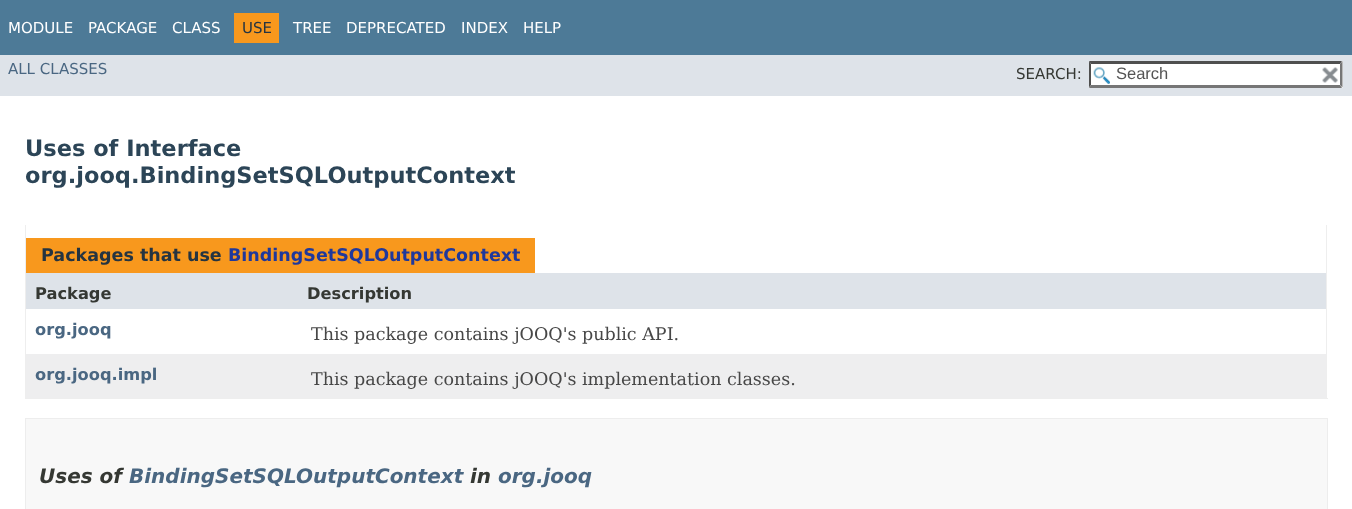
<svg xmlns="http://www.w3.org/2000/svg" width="1352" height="509">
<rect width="100%" height="100%" fill="#fff"/>
<rect width="1352" height="55" fill="#4d7a97"/>
<text x="8" y="33" style="font-family:DejaVu Sans;font-size:15px;fill:#fff">MODULE</text>
<text x="88" y="33" style="font-family:DejaVu Sans;font-size:15px;fill:#fff">PACKAGE</text>
<text x="172" y="33" style="font-family:DejaVu Sans;font-size:15px;fill:#fff">CLASS</text>
<rect x="234" y="13" width="45" height="30" fill="#f8981d"/>
<text x="242" y="33" style="font-family:DejaVu Sans;font-size:15px;fill:#253441">USE</text>
<text x="293" y="33" style="font-family:DejaVu Sans;font-size:15px;fill:#fff">TREE</text>
<text x="346" y="33" style="font-family:DejaVu Sans;font-size:15px;fill:#fff">DEPRECATED</text>
<text x="461" y="33" style="font-family:DejaVu Sans;font-size:15px;fill:#fff">INDEX</text>
<text x="523" y="33" style="font-family:DejaVu Sans;font-size:15px;fill:#fff">HELP</text>
<rect y="55" width="1352" height="41" fill="#dee3e9"/>
<text x="8" y="74" style="font-family:DejaVu Sans;font-size:15px;fill:#4a6782">ALL CLASSES</text>
<text x="1016" y="79" style="font-family:DejaVu Sans;font-size:15px;fill:#353833">SEARCH:</text>
<rect x="1089" y="61" width="254" height="27" fill="#fff"/>
<image x="1093" y="67" width="17" height="17" href="media/1.png"/>
<path d="M1089 61h253l-2 3h-249z" fill="#4f4f4f"/>
<path d="M1342.5 61v26.5l-2.5-2.5v-21z" fill="#767676"/>
<path d="M1342 88h-253l2-3h249z" fill="#767676"/>
<path d="M1089 87.5v-26.5l2 3v21z" fill="#4f4f4f"/>
<text x="1116" y="79" style="font-family:Liberation Sans;font-size:16.5px;fill:#545454">Search</text>
<image x="1322" y="67" width="16" height="16" href="media/2.png"/>
<text x="25" y="156" style="font-family:DejaVu Sans;font-size:22.5px;font-weight:bold;fill:#2c4557">Uses of Interface</text>
<text x="25" y="183" style="font-family:DejaVu Sans;font-size:22.5px;font-weight:bold;fill:#2c4557">org.jooq.BindingSetSQLOutputContext</text>
<rect x="1326" y="225" width="1" height="174" fill="#eee"/>
<rect x="25" y="398" width="1303" height="1" fill="#eee"/>
<rect x="25" y="225" width="1" height="174" fill="#eee"/>
<rect x="26" y="238" width="509" height="35" fill="#f8981d"/>
<text x="41" y="261" style="font-family:DejaVu Sans;font-size:17.5px;font-weight:bold;fill:#253441">Packages that use</text>
<text x="228" y="261" style="font-family:DejaVu Sans;font-size:17.5px;font-weight:bold;fill:#1f389c">BindingSetSQLOutputContext</text>
<rect x="26" y="273" width="1300" height="36" fill="#dee3e9"/>
<text x="35" y="299" style="font-family:DejaVu Sans;font-size:16.25px;font-weight:bold;fill:#353833">Package</text>
<text x="307" y="299" style="font-family:DejaVu Sans;font-size:16.25px;font-weight:bold;fill:#353833">Description</text>
<text x="35" y="335" style="font-family:DejaVu Sans;font-size:16.25px;font-weight:bold;fill:#4a6782">org.jooq</text>
<text x="311" y="340" style="font-family:DejaVu Serif;font-size:17.5px;fill:#474747">This package contains jOOQ's public API.</text>
<rect x="26" y="354" width="1300" height="44" fill="#eeeeef"/>
<text x="35" y="380" style="font-family:DejaVu Sans;font-size:16.25px;font-weight:bold;fill:#4a6782">org.jooq.impl</text>
<text x="311" y="385" style="font-family:DejaVu Serif;font-size:17.5px;fill:#474747">This package contains jOOQ's implementation classes.</text>
<rect x="25.5" y="418.5" width="1302" height="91" fill="#f8f8f8" stroke="#ededed"/>
<text x="39" y="483" style="font-family:DejaVu Sans;font-size:20px;font-weight:bold;font-style:italic;fill:#353833">Uses of</text>
<text x="129" y="483" style="font-family:DejaVu Sans;font-size:20px;font-weight:bold;font-style:italic;fill:#4a6782">BindingSetSQLOutputContext</text>
<text x="470" y="483" style="font-family:DejaVu Sans;font-size:20px;font-weight:bold;font-style:italic;fill:#353833">in</text>
<text x="498" y="483" style="font-family:DejaVu Sans;font-size:20px;font-weight:bold;font-style:italic;fill:#4a6782">org.jooq</text>
</svg>
